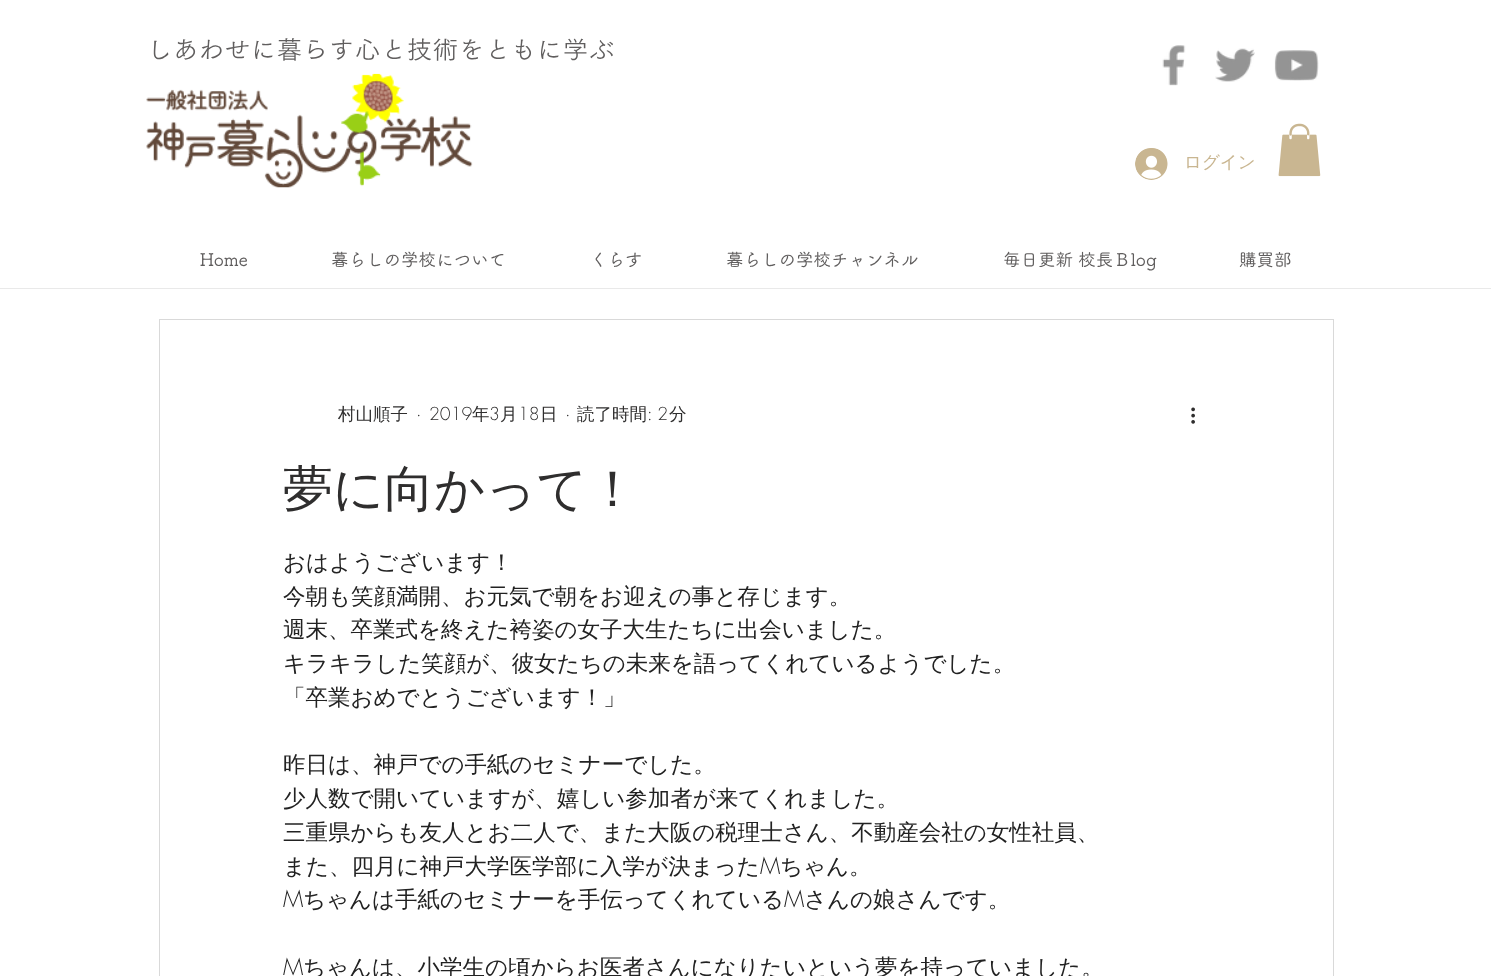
<svg xmlns="http://www.w3.org/2000/svg" width="1491" height="976">
<rect width="100%" height="100%" fill="#fff"/>
<text x="147" y="59" style="font-family:'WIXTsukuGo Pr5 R';font-size:25px;letter-spacing:1px;fill:#605e5e">しあわせに暮らす心と技術をともに学ぶ</text>
<image x="1162" y="45" width="24" height="41" href="media/1.png"/>
<image x="1215" y="48" width="40" height="34" href="media/2.png"/>
<image x="1274" y="50" width="45" height="31" href="media/3.png"/>
<image x="146" y="73" width="327" height="115" href="media/4.png"/>
<image x="1135" y="148" width="33" height="32" href="media/5.png"/>
<text x="1184" y="168" style="font-family:WenQuanYi Zen Hei;font-size:17.5px;font-weight:500;fill:#c9b691">ログイン</text>
<image x="1278" y="123" width="43" height="54" href="media/6.png"/>
<text x="200" y="266" style="font-family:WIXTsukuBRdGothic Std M;font-size:17.5px;font-weight:500;fill:#605e5e">Home</text>
<text x="331" y="266" style="font-family:WIXTsukuBRdGothic Std M;font-size:17.5px;font-weight:500;fill:#605e5e">暮らしの学校について</text>
<text x="590" y="266" style="font-family:WIXTsukuBRdGothic Std M;font-size:17.5px;font-weight:500;fill:#605e5e">くらす</text>
<text x="726" y="266" style="font-family:WIXTsukuBRdGothic Std M;font-size:17.5px;font-weight:500;fill:#605e5e">暮らしの学校チャンネル</text>
<text x="1003" y="266" style="font-family:WIXTsukuBRdGothic Std M;font-size:17.5px;font-weight:500;fill:#605e5e">毎日更新 校長Ｂlog</text>
<text x="1239" y="266" style="font-family:WIXTsukuBRdGothic Std M;font-size:17.5px;font-weight:500;fill:#605e5e">購買部</text>
<rect y="288" width="1491" height="1" fill="#e9e9e9"/>
<rect x="159.5" y="319.5" width="1174" height="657" fill="none" stroke="#d9d9d9"/>
<text x="338" y="420" style="font-family:WenQuanYi Zen Hei;font-size:17.5px;font-weight:500;fill:#2f2e2e">村山順子</text>
<text x="416" y="420" style="font-family:futura;font-size:17.5px;font-weight:300;fill:#2f2e2e">·</text>
<text x="429" y="420" style="font-family:futura;font-size:17.5px;font-weight:300;fill:#2f2e2e">2019</text>
<text x="472" y="420" style="font-family:WenQuanYi Zen Hei;font-size:17.5px;font-weight:500;fill:#2f2e2e">年</text>
<text x="489" y="420" style="font-family:futura;font-size:17.5px;font-weight:300;fill:#2f2e2e">3</text>
<text x="500" y="420" style="font-family:WenQuanYi Zen Hei;font-size:17.5px;font-weight:500;fill:#2f2e2e">月</text>
<text x="518" y="420" style="font-family:futura;font-size:17.5px;font-weight:300;fill:#2f2e2e">18</text>
<text x="540" y="420" style="font-family:WenQuanYi Zen Hei;font-size:17.5px;font-weight:500;fill:#2f2e2e">日</text>
<text x="565" y="420" style="font-family:futura;font-size:17.5px;font-weight:300;fill:#2f2e2e">·</text>
<text x="577" y="420" style="font-family:WenQuanYi Zen Hei;font-size:17.5px;font-weight:500;fill:#2f2e2e">読了時間</text>
<text x="647" y="420" style="font-family:futura;font-size:17.5px;font-weight:300;fill:#2f2e2e">: 2</text>
<text x="669" y="420" style="font-family:WenQuanYi Zen Hei;font-size:17.5px;font-weight:500;fill:#2f2e2e">分</text>
<image x="1191" y="407" width="4" height="17" href="media/7.png"/>
<text x="283" y="506" style="font-family:WenQuanYi Zen Hei;font-size:50px;font-weight:500;fill:#2f2e2e">夢に向かって！</text>
<text x="283" y="570" style="font-family:WenQuanYi Zen Hei;font-size:22.5px;font-weight:500;fill:#222">おはようございます！</text>
<text x="283" y="604" style="font-family:WenQuanYi Zen Hei;font-size:22.5px;font-weight:500;fill:#222">今朝も笑顔満開、お元気で朝をお迎えの事と存じます。</text>
<text x="283" y="637" style="font-family:WenQuanYi Zen Hei;font-size:22.5px;font-weight:500;fill:#222">週末、卒業式を終えた袴姿の女子大生たちに出会いました。</text>
<text x="283" y="671" style="font-family:WenQuanYi Zen Hei;font-size:22.5px;font-weight:500;fill:#222">キラキラした笑顔が、彼女たちの未来を語ってくれているようでした。</text>
<text x="283" y="705" style="font-family:WenQuanYi Zen Hei;font-size:22.5px;font-weight:500;fill:#222">「卒業おめでとうございます！」</text>
<text x="283" y="772" style="font-family:WenQuanYi Zen Hei;font-size:22.5px;font-weight:500;fill:#222">昨日は、神戸での手紙のセミナーでした。</text>
<text x="283" y="806" style="font-family:WenQuanYi Zen Hei;font-size:22.5px;font-weight:500;fill:#222">少人数で開いていますが、嬉しい参加者が来てくれました。</text>
<text x="283" y="840" style="font-family:WenQuanYi Zen Hei;font-size:22.5px;font-weight:500;fill:#222">三重県からも友人とお二人で、また大阪の税理士さん、不動産会社の女性社員、</text>
<text x="283" y="874" style="font-family:WenQuanYi Zen Hei;font-size:22.5px;font-weight:500;fill:#222">また、四月に神戸大学医学部に入学が決まった</text>
<text x="760" y="874" style="font-family:futura;font-size:22.5px;font-weight:300;fill:#222">M</text>
<text x="780" y="874" style="font-family:WenQuanYi Zen Hei;font-size:22.5px;font-weight:500;fill:#222">ちゃん。</text>
<text x="283" y="907" style="font-family:futura;font-size:22.5px;font-weight:300;fill:#222">M</text>
<text x="303" y="907" style="font-family:WenQuanYi Zen Hei;font-size:22.5px;font-weight:500;fill:#222">ちゃんは手紙のセミナーを手伝ってくれている</text>
<text x="784" y="907" style="font-family:futura;font-size:22.5px;font-weight:300;fill:#222">M</text>
<text x="804" y="907" style="font-family:WenQuanYi Zen Hei;font-size:22.5px;font-weight:500;fill:#222">さんの娘さんです。</text>
<text x="283" y="975" style="font-family:futura;font-size:22.5px;font-weight:300;fill:#222">M</text>
<text x="303" y="975" style="font-family:WenQuanYi Zen Hei;font-size:22.5px;font-weight:500;fill:#222">ちゃんは、小学生の頃からお医者さんになりたいという夢を持っていました。</text>
</svg>
